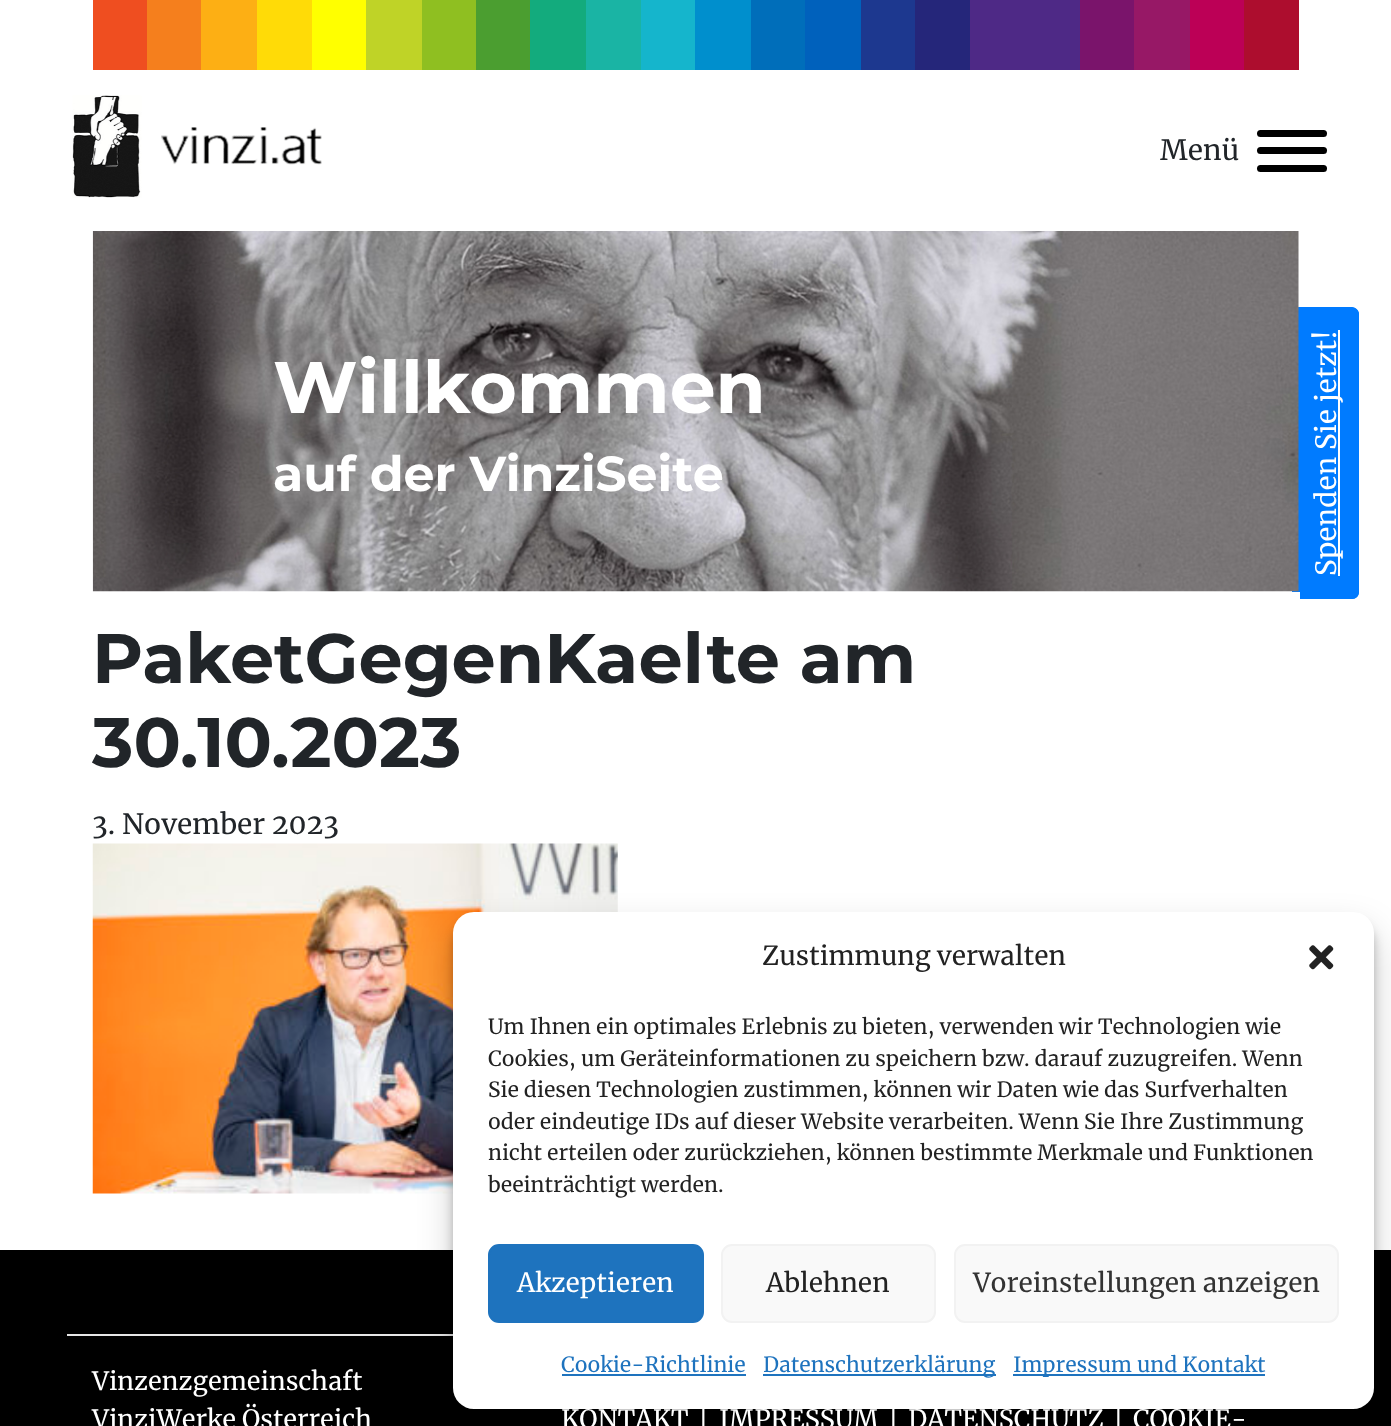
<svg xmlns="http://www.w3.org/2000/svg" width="1391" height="1426">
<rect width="100%" height="100%" fill="#fff"/>
<rect x="93" width="54" height="70" fill="#ef4e20"/>
<rect x="147" width="54" height="70" fill="#f57f1d"/>
<rect x="201" width="56" height="70" fill="#fdaf14"/>
<rect x="257" width="55" height="70" fill="#ffdb07"/>
<rect x="312" width="54" height="70" fill="#ff0"/>
<rect x="366" width="56" height="70" fill="#bfd327"/>
<rect x="422" width="54" height="70" fill="#8fbf21"/>
<rect x="476" width="54" height="70" fill="#4b9e30"/>
<rect x="530" width="56" height="70" fill="#13ab7d"/>
<rect x="586" width="55" height="70" fill="#1ab4a4"/>
<rect x="641" width="54" height="70" fill="#15b5cc"/>
<rect x="695" width="56" height="70" fill="#008fcd"/>
<rect x="751" width="54" height="70" fill="#006eba"/>
<rect x="805" width="56" height="70" fill="#0061bc"/>
<rect x="861" width="54" height="70" fill="#1d388f"/>
<rect x="915" width="55" height="70" fill="#25267a"/>
<rect x="970" width="110" height="70" fill="#4e2986"/>
<rect x="1080" width="54" height="70" fill="#7a146b"/>
<rect x="1134" width="56" height="70" fill="#971866"/>
<rect x="1190" width="54" height="70" fill="#bc0056"/>
<rect x="1244" width="55" height="70" fill="#ad0d2e"/>
<image x="72" y="95" width="250" height="103" href="media/1.png"/>
<text x="1160" y="160" style="font-family:Merriweather;font-size:28px;fill:#212529">Menü</text>
<rect x="1257" y="130" width="70" height="7" rx="3.5" fill="#000"/>
<rect x="1257" y="147" width="70" height="7" rx="3.5" fill="#000"/>
<rect x="1257" y="165" width="70" height="7" rx="3.5" fill="#000"/>
<path d="M1292 592v-278c0-3 4-7 7-7h53c4 0 7 4 7 7v278c0 4-3 7-7 7h-53c-3 0-7-3-7-7z" fill="#007bff"/>
<path d="M1293 592v-277.5c0-3.5 3-6 6.5-6h52.5c3.5 0 6 2.5 6 6v277.5c0 3.5-2.5 6-6 6h-52.5c-3.5 0-6.5-2.5-6.5-6z" fill="none" stroke="#007bff" stroke-width="1.8"/>
<image x="92" y="231" width="1207" height="361" href="media/2.png"/>
<text x="273" y="413" style="font-family:Montserrat;font-size:72.75px;font-weight:bold;fill:#fff">Willkommen</text>
<text x="273" y="491" style="font-family:Montserrat;font-size:49px;font-weight:bold;fill:#fff">auf der VinziSeite</text>
<rect x="1338" y="330" width="2" height="246" fill="#fff"/>
<text x="1336" y="576" transform="rotate(-90 1336 576)" style="font-family:Merriweather;font-size:28px;fill:#fff">Spenden Sie jetzt!</text>
<rect x="1292" y="592" width="8" height="7" fill="#fff"/>
<text x="92" y="683" style="font-family:Montserrat;font-size:70px;font-weight:bold;fill:#212529">PaketGegenKaelte am</text>
<text x="92" y="767" style="font-family:Montserrat;font-size:70px;font-weight:bold;fill:#212529">30.10.2023</text>
<text x="92" y="834" style="font-family:Merriweather;font-size:28px;fill:#212529">3. November 2023</text>
<image x="92" y="843" width="526" height="351" href="media/3.png"/>
<rect y="1250" width="1391" height="176" fill="#000"/>
<rect x="67" y="1334" width="386" height="2" fill="#e6e6e6"/>
<rect x="453" y="922" width="921" height="497" rx="21" fill="#0000003b" filter="blur(5px)"/>
<rect x="453" y="929" width="921" height="497" rx="21" fill="#00000030" filter="blur(17.5px)"/>
<rect x="453" y="912" width="921" height="497" rx="21" fill="#fff"/>
<text x="762" y="965" style="font-family:Merriweather;font-size:26.25px;fill:#222">Zustimmung verwalten</text>
<image x="1309" y="945" width="25" height="25" href="media/4.png"/>
<text x="488" y="1034" style="font-family:Merriweather;font-size:21px;fill:#222">Um Ihnen ein optimales Erlebnis zu bieten, verwenden wir Technologien wie</text>
<text x="488" y="1066" style="font-family:Merriweather;font-size:21px;fill:#222">Cookies, um Geräteinformationen zu speichern bzw. darauf zuzugreifen. Wenn</text>
<text x="488" y="1097" style="font-family:Merriweather;font-size:21px;fill:#222">Sie diesen Technologien zustimmen, können wir Daten wie das Surfverhalten</text>
<text x="488" y="1129" style="font-family:Merriweather;font-size:21px;fill:#222">oder eindeutige IDs auf dieser Website verarbeiten. Wenn Sie Ihre Zustimmung</text>
<text x="488" y="1160" style="font-family:Merriweather;font-size:21px;fill:#222">nicht erteilen oder zurückziehen, können bestimmte Merkmale und Funktionen</text>
<text x="488" y="1192" style="font-family:Merriweather;font-size:21px;fill:#222">beeinträchtigt werden.</text>
<rect x="489" y="1245" width="214" height="77" rx="10" fill="#1e73be" stroke="#1e73be" stroke-width="2"/>
<text x="517" y="1292" style="font-family:Merriweather;font-size:26.25px;fill:#fff">Akzeptieren</text>
<rect x="722" y="1245" width="213" height="77" rx="10" fill="#f9f9f9" stroke="#f2f2f2" stroke-width="2"/>
<text x="766" y="1292" style="font-family:Merriweather;font-size:26.25px;fill:#222">Ablehnen</text>
<rect x="955" y="1245" width="383" height="77" rx="10" fill="#f9f9f9" stroke="#f2f2f2" stroke-width="2"/>
<text x="973" y="1292" style="font-family:Merriweather;font-size:26.25px;fill:#333">Voreinstellungen anzeigen</text>
<text x="561" y="1372" style="font-family:Merriweather;font-size:21px;fill:#1e73be">Cookie-Richtlinie</text>
<rect x="562" y="1374" width="184" height="2" fill="#1e73be"/>
<rect x="763" y="1374" width="233" height="2" fill="#1e73be"/>
<text x="763" y="1372" style="font-family:Merriweather;font-size:21px;fill:#1e73be">Datenschutzerklärung</text>
<rect x="1013" y="1374" width="252" height="2" fill="#1e73be"/>
<text x="1013" y="1372" style="font-family:Merriweather;font-size:21px;fill:#1e73be">Impressum und Kontakt</text>
<text x="92" y="1390" style="font-family:Merriweather;font-size:25.25px;fill:#fff">Vinzenzgemeinschaft</text>
<text x="92" y="1428" style="font-family:Merriweather;font-size:25.25px;fill:#fff">VinziWerke Österreich</text>
<text x="561" y="1428" style="font-family:Merriweather;font-size:25.25px;fill:#fff">KONTAKT</text>
<text x="698" y="1428" style="font-family:Merriweather;font-size:25.25px;fill:#fff">|</text>
<text x="719" y="1428" style="font-family:Merriweather;font-size:25.25px;fill:#fff">IMPRESSUM</text>
<text x="888" y="1428" style="font-family:Merriweather;font-size:25.25px;fill:#fff">|</text>
<text x="908" y="1428" style="font-family:Merriweather;font-size:25.25px;fill:#fff">DATENSCHUTZ</text>
<text x="1113" y="1428" style="font-family:Merriweather;font-size:25.25px;fill:#fff">|</text>
<text x="1133" y="1428" style="font-family:Merriweather;font-size:25.25px;fill:#fff">COOKIE-</text>
</svg>
